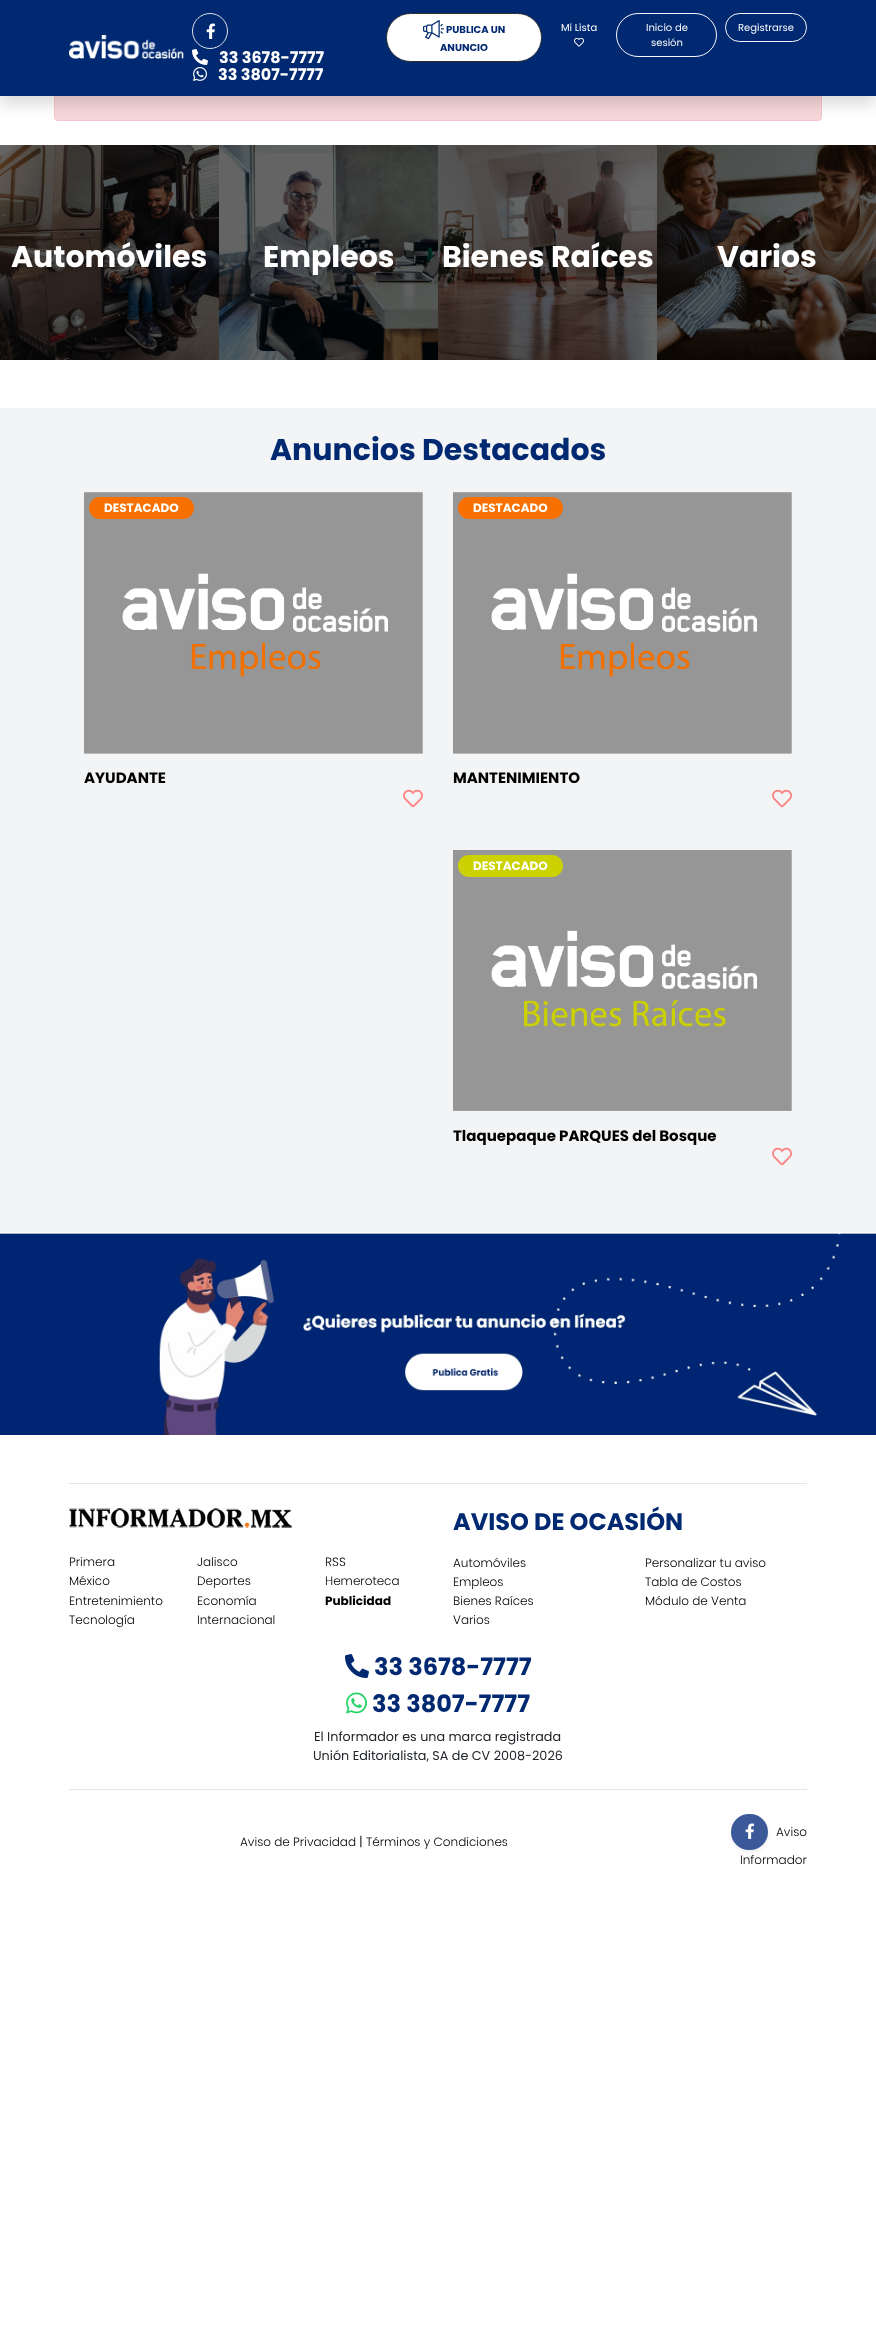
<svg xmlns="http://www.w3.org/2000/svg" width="876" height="2330">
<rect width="100%" height="100%" fill="#fff"/>
<rect x="54.5" y="71.5" width="767" height="49" rx="3.5" fill="#f8d7da" stroke="#f5c6cb"/>
<rect y="8" width="876" height="96" fill="#00000026" filter="blur(8px)"/>
<rect width="876" height="96" fill="#002971"/>
<image x="69" y="35" width="115" height="24" href="media/1.png"/>
<rect x="386.5" y="13.5" width="155" height="48" rx="24" fill="#fff" stroke="#2d2d2d"/>
<image x="423" y="20" width="21" height="20" href="media/2.png"/>
<text x="446" y="33" style="font-family:Poppins;font-size:10px;font-weight:bold;fill:#002971">PUBLICA UN</text>
<text x="440" y="51" style="font-family:Poppins;font-size:10px;font-weight:bold;fill:#002971">ANUNCIO</text>
<text x="561" y="31" style="font-family:Poppins;font-size:10px;fill:#fff">Mi Lista</text>
<image x="574" y="37" width="10" height="10" href="media/3.png"/>
<rect x="616.5" y="13.5" width="100" height="43" rx="21.5" fill="none" stroke="#f8f9fa"/>
<text x="646" y="31" style="font-family:Poppins;font-size:10px;fill:#f8f9fa">Inicio de</text>
<text x="651" y="46" style="font-family:Poppins;font-size:10px;fill:#f8f9fa">sesión</text>
<rect x="725.5" y="13.5" width="81" height="28" rx="14" fill="none" stroke="#f8f9fa"/>
<text x="738" y="31" style="font-family:Poppins;font-size:10px;fill:#f8f9fa">Registrarse</text>
<circle cx="210" cy="31" r="17.5" fill="none" stroke="#dee2e6"/>
<image x="206" y="23" width="9" height="16" href="media/4.png"/>
<image x="192" y="49" width="16" height="16" href="media/5.png"/>
<text x="219" y="63" style="font-family:Poppins;font-size:16px;font-weight:bold;fill:#fff">33 3678-7777</text>
<image x="193" y="67" width="14" height="14" href="media/6.png"/>
<text x="218" y="80" style="font-family:Poppins;font-size:16px;font-weight:bold;fill:#fff">33 3807-7777</text>
<image x="0" y="145" width="219" height="215" href="media/7.png"/>
<text x="11" y="267" style="font-family:Poppins;font-size:30px;font-weight:bold;fill:#fff">Automóviles</text>
<image x="219" y="145" width="219" height="215" href="media/8.png"/>
<text x="263" y="267" style="font-family:Poppins;font-size:30px;font-weight:bold;fill:#fff">Empleos</text>
<image x="438" y="145" width="219" height="215" href="media/9.png"/>
<text x="442" y="267" style="font-family:Poppins;font-size:30px;font-weight:bold;fill:#fff">Bienes Raíces</text>
<image x="657" y="145" width="219" height="215" href="media/10.png"/>
<text x="717" y="267" style="font-family:Poppins;font-size:30px;font-weight:bold;fill:#fff">Varios</text>
<rect y="408" width="876" height="824" fill="#f2f4f5"/>
<text x="270" y="460" style="font-family:Poppins;font-size:30px;font-weight:bold;fill:#002971">Anuncios Destacados</text>
<image x="84" y="492" width="339" height="262" href="media/11.png"/>
<rect x="89" y="497" width="105" height="22" rx="11" fill="#f77000"/>
<text x="104" y="512" style="font-family:Poppins;font-size:12px;font-weight:bold;fill:#fff">DESTACADO</text>
<text x="84" y="783" style="font-family:Poppins;font-size:15px;font-weight:bold;fill:#000">AYUDANTE</text>
<image x="403" y="789" width="20" height="19" href="media/12.png"/>
<image x="453" y="492" width="339" height="262" href="media/11.png"/>
<rect x="458" y="497" width="105" height="22" rx="11" fill="#f77000"/>
<text x="473" y="512" style="font-family:Poppins;font-size:12px;font-weight:bold;fill:#fff">DESTACADO</text>
<text x="453" y="783" style="font-family:Poppins;font-size:15px;font-weight:bold;fill:#000">MANTENIMIENTO</text>
<image x="772" y="789" width="20" height="19" href="media/12.png"/>
<image x="453" y="850" width="339" height="262" href="media/13.png"/>
<rect x="458" y="855" width="105" height="22" rx="11" fill="#cbd200"/>
<text x="473" y="870" style="font-family:Poppins;font-size:12px;font-weight:bold;fill:#fff">DESTACADO</text>
<text x="453" y="1141" style="font-family:Poppins;font-size:15px;font-weight:bold;fill:#000">Tlaquepaque PARQUES del Bosque</text>
<image x="772" y="1147" width="20" height="19" href="media/12.png"/>
<image x="0" y="1232" width="876" height="203" href="media/14.png"/>
<rect x="69" y="1483" width="738" height="1" fill="#e6e6e6"/>
<image x="69" y="1508" width="223" height="20" href="media/15.png"/>
<text x="69" y="1566" style="font-family:Poppins;font-size:12px;font-weight:300;fill:#000">Primera</text>
<text x="197" y="1566" style="font-family:Poppins;font-size:12px;font-weight:300;fill:#000">Jalisco</text>
<text x="325" y="1566" style="font-family:Poppins;font-size:12px;font-weight:300;fill:#000">RSS</text>
<text x="69" y="1585" style="font-family:Poppins;font-size:12px;font-weight:300;fill:#000">México</text>
<text x="197" y="1585" style="font-family:Poppins;font-size:12px;font-weight:300;fill:#000">Deportes</text>
<text x="325" y="1585" style="font-family:Poppins;font-size:12px;font-weight:300;fill:#000">Hemeroteca</text>
<text x="69" y="1605" style="font-family:Poppins;font-size:12px;font-weight:300;fill:#000">Entretenimiento</text>
<text x="197" y="1605" style="font-family:Poppins;font-size:12px;font-weight:300;fill:#000">Economía</text>
<text x="325" y="1605" style="font-family:Poppins;font-size:12px;font-weight:bold;fill:#000">Publicidad</text>
<text x="69" y="1624" style="font-family:Poppins;font-size:12px;font-weight:300;fill:#000">Tecnología</text>
<text x="197" y="1624" style="font-family:Poppins;font-size:12px;font-weight:300;fill:#000">Internacional</text>
<text x="453" y="1530" style="font-family:Poppins;font-size:24px;font-weight:bold;fill:#002971">AVISO DE OCASIÓN</text>
<text x="453" y="1567" style="font-family:Poppins;font-size:12px;font-weight:300;fill:#000">Automóviles</text>
<text x="645" y="1567" style="font-family:Poppins;font-size:12px;font-weight:300;fill:#000">Personalizar tu aviso</text>
<text x="453" y="1586" style="font-family:Poppins;font-size:12px;font-weight:300;fill:#000">Empleos</text>
<text x="645" y="1586" style="font-family:Poppins;font-size:12px;font-weight:300;fill:#000">Tabla de Costos</text>
<text x="453" y="1605" style="font-family:Poppins;font-size:12px;font-weight:300;fill:#000">Bienes Raíces</text>
<text x="645" y="1605" style="font-family:Poppins;font-size:12px;font-weight:300;fill:#000">Módulo de Venta</text>
<text x="453" y="1624" style="font-family:Poppins;font-size:12px;font-weight:300;fill:#000">Varios</text>
<image x="345" y="1654" width="24" height="24" href="media/16.png"/>
<text x="374" y="1675" style="font-family:Poppins;font-size:24px;font-weight:bold;fill:#002971">33 3678-7777</text>
<image x="346" y="1692" width="21" height="22" href="media/17.png"/>
<text x="372" y="1712" style="font-family:Poppins;font-size:24px;font-weight:bold;fill:#002971">33 3807-7777</text>
<text x="314" y="1741" style="font-family:Poppins;font-size:12.75px;fill:#212529">El Informador es una marca registrada</text>
<text x="313" y="1760" style="font-family:Poppins;font-size:12.75px;fill:#212529">Unión Editorialista, SA de CV 2008-2026</text>
<rect x="69" y="1789" width="738" height="1" fill="#e6e6e6"/>
<text x="240" y="1846" style="font-family:Poppins;font-size:12px;font-weight:300;fill:#000">Aviso de Privacidad</text>
<text x="359" y="1846" style="font-family:Poppins;font-size:12.75px;fill:#212529">|</text>
<text x="366" y="1846" style="font-family:Poppins;font-size:12px;font-weight:300;fill:#000">Términos y Condiciones</text>
<rect x="731" y="1816" width="37" height="36" rx="18" fill="#00000012" filter="blur(2px)"/>
<rect x="731" y="1814" width="37" height="36" rx="18" fill="#3b5998"/>
<image x="745" y="1823" width="9" height="16" href="media/18.png"/>
<text x="776" y="1836" style="font-family:Poppins;font-size:12px;font-weight:300;fill:#000">Aviso</text>
<text x="740" y="1864" style="font-family:Poppins;font-size:12px;font-weight:300;fill:#000">Informador</text>
</svg>
